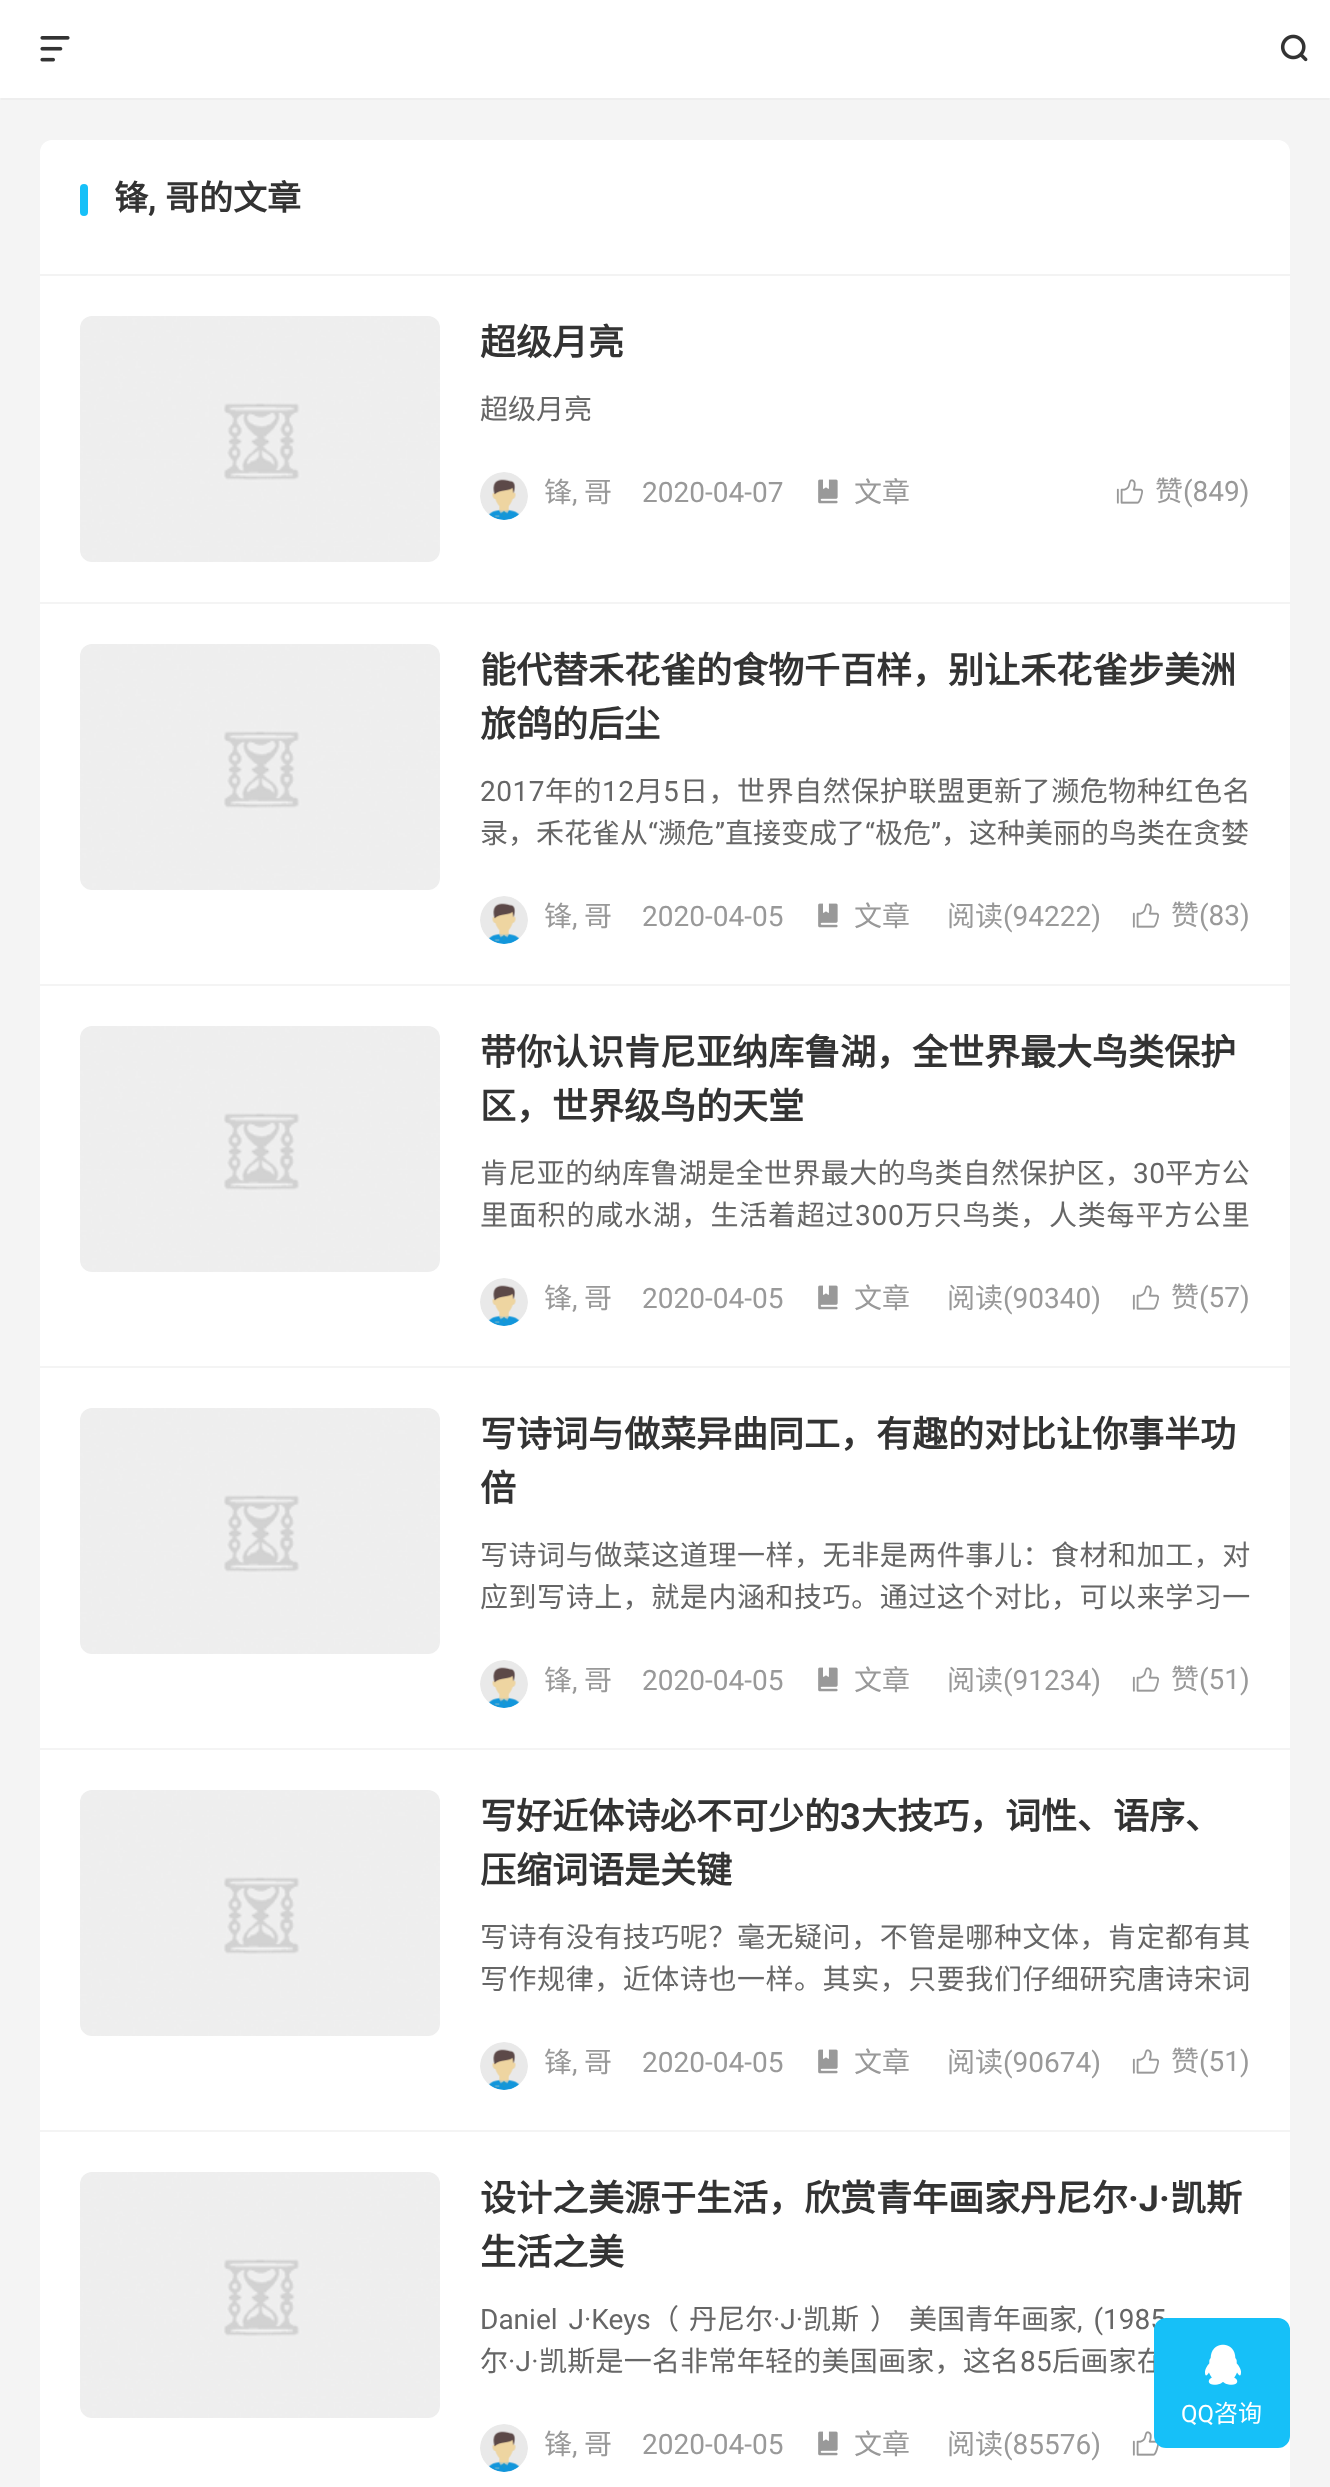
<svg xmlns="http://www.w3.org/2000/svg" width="1330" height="2487">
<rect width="100%" height="100%" fill="#f4f4f4"/>
<rect width="1330" height="100" fill="#fff"/>
<image x="1280" y="34" width="28" height="28" href="media/1.png"/>
<rect y="98" width="1330" height="2" rx="1" fill="#eee"/>
<image x="40" y="36" width="30" height="26" href="media/2.png"/>
<path d="M52 140h1226c6.5 0 12 5.5 12 12v124h-1250v-124c0-6.5 5.5-12 12-12z" fill="#fff"/>
<rect x="40" y="274" width="1250" height="2" fill="#f3f3f3"/>
<rect x="80" y="184" width="8" height="32" rx="4" fill="#16c0f8"/>
<text x="114" y="210" style="font-family:Noto Sans CJK SC;font-size:34px;font-weight:bold;fill:#333">锋</text>
<text x="148" y="210" style="font-family:Roboto;font-size:34px;font-weight:bold;fill:#333">,</text>
<text x="165" y="210" style="font-family:Noto Sans CJK SC;font-size:34px;font-weight:bold;fill:#333">哥的文章</text>
<rect x="40" y="276" width="1250" height="326" fill="#fff"/>
<image x="80" y="316" width="360" height="246" href="media/3.png"/>
<text x="480" y="355" style="font-family:Noto Sans CJK SC;font-size:36px;font-weight:bold;fill:#333">超级月亮</text>
<text x="480" y="419" style="font-family:Noto Sans CJK SC;font-size:28px;fill:#666">超级月亮</text>
<image x="480" y="472" width="48" height="48" href="media/4.png"/>
<text x="544" y="502" style="font-family:Noto Sans CJK SC;font-size:28px;fill:#999">锋</text>
<text x="572" y="502" style="font-family:Roboto;font-size:28px;fill:#999">,</text>
<text x="584" y="502" style="font-family:Noto Sans CJK SC;font-size:28px;fill:#999">哥</text>
<text x="642" y="502" style="font-family:Roboto;font-size:28px;fill:#999">2020-04-07</text>
<image x="818" y="479" width="20" height="25" href="media/5.png"/>
<text x="854" y="502" style="font-family:Noto Sans CJK SC;font-size:28px;fill:#999">文章</text>
<image x="1116" y="479" width="27" height="25" href="media/6.png"/>
<text x="1155" y="501" style="font-family:Noto Sans CJK SC;font-size:28px;fill:#999">赞</text>
<text x="1183" y="501" style="font-family:Roboto;font-size:28px;fill:#999">(849)</text>
<rect x="40" y="604" width="1250" height="380" fill="#fff"/>
<image x="80" y="644" width="360" height="246" href="media/3.png"/>
<text x="480" y="683" style="font-family:Noto Sans CJK SC;font-size:36px;font-weight:bold;fill:#333">能代替禾花雀的食物千百样，别让禾花雀步美洲</text>
<text x="480" y="737" style="font-family:Noto Sans CJK SC;font-size:36px;font-weight:bold;fill:#333">旅鸽的后尘</text>
<text x="480" y="801" style="font-family:Roboto;font-size:28px;letter-spacing:0.55px;fill:#666">2017</text>
<text x="545" y="801" style="font-family:Noto Sans CJK SC;font-size:28px;letter-spacing:0.55px;fill:#666">年的</text>
<text x="602" y="801" style="font-family:Roboto;font-size:28px;letter-spacing:0.55px;fill:#666">12</text>
<text x="635" y="801" style="font-family:Noto Sans CJK SC;font-size:28px;letter-spacing:0.55px;fill:#666">月</text>
<text x="663" y="801" style="font-family:Roboto;font-size:28px;letter-spacing:0.55px;fill:#666">5</text>
<text x="680" y="801" style="font-family:Noto Sans CJK SC;font-size:28px;letter-spacing:0.55px;fill:#666">日，世界自然保护联盟更新了濒危物种红色名</text>
<text x="480" y="843" style="font-family:Noto Sans CJK SC;font-size:28px;fill:#666">录，禾花雀从</text>
<text x="648" y="843" style="font-family:Roboto;font-size:28px;fill:#666">“</text>
<text x="658" y="843" style="font-family:Noto Sans CJK SC;font-size:28px;fill:#666">濒危</text>
<text x="715" y="843" style="font-family:Roboto;font-size:28px;fill:#666">”</text>
<text x="725" y="843" style="font-family:Noto Sans CJK SC;font-size:28px;fill:#666">直接变成了</text>
<text x="865" y="843" style="font-family:Roboto;font-size:28px;fill:#666">“</text>
<text x="875" y="843" style="font-family:Noto Sans CJK SC;font-size:28px;fill:#666">极危</text>
<text x="931" y="843" style="font-family:Roboto;font-size:28px;fill:#666">”</text>
<text x="941" y="843" style="font-family:Noto Sans CJK SC;font-size:28px;fill:#666">，这种美丽的鸟类在贪婪</text>
<image x="480" y="896" width="48" height="48" href="media/7.png"/>
<text x="544" y="926" style="font-family:Noto Sans CJK SC;font-size:28px;fill:#999">锋</text>
<text x="572" y="926" style="font-family:Roboto;font-size:28px;fill:#999">,</text>
<text x="584" y="926" style="font-family:Noto Sans CJK SC;font-size:28px;fill:#999">哥</text>
<text x="642" y="926" style="font-family:Roboto;font-size:28px;fill:#999">2020-04-05</text>
<image x="818" y="903" width="20" height="25" href="media/5.png"/>
<text x="854" y="926" style="font-family:Noto Sans CJK SC;font-size:28px;fill:#999">文章</text>
<text x="947" y="926" style="font-family:Noto Sans CJK SC;font-size:28px;fill:#999">阅读</text>
<text x="1003" y="926" style="font-family:Roboto;font-size:28px;fill:#999">(94222)</text>
<image x="1132" y="903" width="27" height="25" href="media/6.png"/>
<text x="1171" y="925" style="font-family:Noto Sans CJK SC;font-size:28px;fill:#999">赞</text>
<text x="1199" y="925" style="font-family:Roboto;font-size:28px;fill:#999">(83)</text>
<rect x="40" y="986" width="1250" height="380" fill="#fff"/>
<image x="80" y="1026" width="360" height="246" href="media/8.png"/>
<text x="480" y="1065" style="font-family:Noto Sans CJK SC;font-size:36px;font-weight:bold;fill:#333">带你认识肯尼亚纳库鲁湖，全世界最大鸟类保护</text>
<text x="480" y="1119" style="font-family:Noto Sans CJK SC;font-size:36px;font-weight:bold;fill:#333">区，世界级鸟的天堂</text>
<text x="480" y="1183" style="font-family:Noto Sans CJK SC;font-size:28px;letter-spacing:0.4px;fill:#666">肯尼亚的纳库鲁湖是全世界最大的鸟类自然保护区，</text>
<text x="1133" y="1183" style="font-family:Roboto;font-size:28px;letter-spacing:0.4px;fill:#666">30</text>
<text x="1165" y="1183" style="font-family:Noto Sans CJK SC;font-size:28px;letter-spacing:0.4px;fill:#666">平方公</text>
<text x="480" y="1225" style="font-family:Noto Sans CJK SC;font-size:28px;letter-spacing:0.8px;fill:#666">里面积的咸水湖，生活着超过</text>
<text x="855" y="1225" style="font-family:Roboto;font-size:28px;letter-spacing:0.8px;fill:#666">300</text>
<text x="905" y="1225" style="font-family:Noto Sans CJK SC;font-size:28px;letter-spacing:0.8px;fill:#666">万只鸟类，人类每平方公里</text>
<image x="480" y="1278" width="48" height="48" href="media/7.png"/>
<text x="544" y="1308" style="font-family:Noto Sans CJK SC;font-size:28px;fill:#999">锋</text>
<text x="572" y="1308" style="font-family:Roboto;font-size:28px;fill:#999">,</text>
<text x="584" y="1308" style="font-family:Noto Sans CJK SC;font-size:28px;fill:#999">哥</text>
<text x="642" y="1308" style="font-family:Roboto;font-size:28px;fill:#999">2020-04-05</text>
<image x="818" y="1285" width="20" height="25" href="media/5.png"/>
<text x="854" y="1308" style="font-family:Noto Sans CJK SC;font-size:28px;fill:#999">文章</text>
<text x="947" y="1308" style="font-family:Noto Sans CJK SC;font-size:28px;fill:#999">阅读</text>
<text x="1003" y="1308" style="font-family:Roboto;font-size:28px;fill:#999">(90340)</text>
<image x="1132" y="1285" width="27" height="25" href="media/6.png"/>
<text x="1171" y="1307" style="font-family:Noto Sans CJK SC;font-size:28px;fill:#999">赞</text>
<text x="1199" y="1307" style="font-family:Roboto;font-size:28px;fill:#999">(57)</text>
<rect x="40" y="1368" width="1250" height="380" fill="#fff"/>
<image x="80" y="1408" width="360" height="246" href="media/3.png"/>
<text x="480" y="1447" style="font-family:Noto Sans CJK SC;font-size:36px;font-weight:bold;fill:#333">写诗词与做菜异曲同工，有趣的对比让你事半功</text>
<text x="480" y="1501" style="font-family:Noto Sans CJK SC;font-size:36px;font-weight:bold;fill:#333">倍</text>
<text x="480" y="1565" style="font-family:Noto Sans CJK SC;font-size:28px;letter-spacing:0.55px;fill:#666">写诗词与做菜这道理一样，无非是两件事儿：食材和加工，对</text>
<text x="480" y="1607" style="font-family:Noto Sans CJK SC;font-size:28px;letter-spacing:0.55px;fill:#666">应到写诗上，就是内涵和技巧。通过这个对比，可以来学习一</text>
<image x="480" y="1660" width="48" height="48" href="media/7.png"/>
<text x="544" y="1690" style="font-family:Noto Sans CJK SC;font-size:28px;fill:#999">锋</text>
<text x="572" y="1690" style="font-family:Roboto;font-size:28px;fill:#999">,</text>
<text x="584" y="1690" style="font-family:Noto Sans CJK SC;font-size:28px;fill:#999">哥</text>
<text x="642" y="1690" style="font-family:Roboto;font-size:28px;fill:#999">2020-04-05</text>
<image x="818" y="1667" width="20" height="25" href="media/5.png"/>
<text x="854" y="1690" style="font-family:Noto Sans CJK SC;font-size:28px;fill:#999">文章</text>
<text x="947" y="1690" style="font-family:Noto Sans CJK SC;font-size:28px;fill:#999">阅读</text>
<text x="1003" y="1690" style="font-family:Roboto;font-size:28px;fill:#999">(91234)</text>
<image x="1132" y="1667" width="27" height="25" href="media/6.png"/>
<text x="1171" y="1689" style="font-family:Noto Sans CJK SC;font-size:28px;fill:#999">赞</text>
<text x="1199" y="1689" style="font-family:Roboto;font-size:28px;fill:#999">(51)</text>
<rect x="40" y="1750" width="1250" height="380" fill="#fff"/>
<image x="80" y="1790" width="360" height="246" href="media/9.png"/>
<text x="480" y="1829" style="font-family:Noto Sans CJK SC;font-size:36px;font-weight:bold;fill:#333">写好近体诗必不可少的</text>
<text x="840" y="1829" style="font-family:Roboto;font-size:36px;font-weight:bold;fill:#333">3</text>
<text x="861" y="1829" style="font-family:Noto Sans CJK SC;font-size:36px;font-weight:bold;fill:#333">大技巧，词性、语序、</text>
<text x="480" y="1883" style="font-family:Noto Sans CJK SC;font-size:36px;font-weight:bold;fill:#333">压缩词语是关键</text>
<text x="480" y="1947" style="font-family:Noto Sans CJK SC;font-size:28px;letter-spacing:0.55px;fill:#666">写诗有没有技巧呢？毫无疑问，不管是哪种文体，肯定都有其</text>
<text x="480" y="1989" style="font-family:Noto Sans CJK SC;font-size:28px;letter-spacing:0.55px;fill:#666">写作规律，近体诗也一样。其实，只要我们仔细研究唐诗宋词</text>
<image x="480" y="2042" width="48" height="48" href="media/7.png"/>
<text x="544" y="2072" style="font-family:Noto Sans CJK SC;font-size:28px;fill:#999">锋</text>
<text x="572" y="2072" style="font-family:Roboto;font-size:28px;fill:#999">,</text>
<text x="584" y="2072" style="font-family:Noto Sans CJK SC;font-size:28px;fill:#999">哥</text>
<text x="642" y="2072" style="font-family:Roboto;font-size:28px;fill:#999">2020-04-05</text>
<image x="818" y="2049" width="20" height="25" href="media/5.png"/>
<text x="854" y="2072" style="font-family:Noto Sans CJK SC;font-size:28px;fill:#999">文章</text>
<text x="947" y="2072" style="font-family:Noto Sans CJK SC;font-size:28px;fill:#999">阅读</text>
<text x="1003" y="2072" style="font-family:Roboto;font-size:28px;fill:#999">(90674)</text>
<image x="1132" y="2049" width="27" height="25" href="media/6.png"/>
<text x="1171" y="2071" style="font-family:Noto Sans CJK SC;font-size:28px;fill:#999">赞</text>
<text x="1199" y="2071" style="font-family:Roboto;font-size:28px;fill:#999">(51)</text>
<rect x="40" y="2132" width="1250" height="355" fill="#fff"/>
<image x="80" y="2172" width="360" height="246" href="media/3.png"/>
<text x="480" y="2211" style="font-family:Noto Sans CJK SC;font-size:36px;font-weight:bold;fill:#333">设计之美源于生活，欣赏青年画家丹尼尔</text>
<text x="1128" y="2211" style="font-family:Roboto;font-size:36px;font-weight:bold;fill:#333">·J·</text>
<text x="1170" y="2211" style="font-family:Noto Sans CJK SC;font-size:36px;font-weight:bold;fill:#333">凯斯</text>
<text x="480" y="2265" style="font-family:Noto Sans CJK SC;font-size:36px;font-weight:bold;fill:#333">生活之美</text>
<text x="480" y="2329" word-spacing="4" style="font-family:Roboto;font-size:28px;fill:#666">Daniel J·Keys</text>
<text x="651" y="2329" style="font-family:Noto Sans CJK SC;font-size:28px;fill:#666">（</text>
<text x="689" y="2329" style="font-family:Noto Sans CJK SC;font-size:28px;fill:#666">丹尼尔</text>
<text x="773" y="2329" style="font-family:Roboto;font-size:28px;fill:#666">·J·</text>
<text x="803" y="2329" style="font-family:Noto Sans CJK SC;font-size:28px;fill:#666">凯斯</text>
<text x="870" y="2329" style="font-family:Noto Sans CJK SC;font-size:28px;fill:#666">）</text>
<text x="909" y="2329" style="font-family:Noto Sans CJK SC;font-size:28px;fill:#666">美国青年画家</text>
<text x="1077" y="2329" word-spacing="4" style="font-family:Roboto;font-size:28px;fill:#666">, (1985</text>
<text x="480" y="2371" style="font-family:Noto Sans CJK SC;font-size:28px;letter-spacing:0.25px;fill:#666">尔</text>
<text x="508" y="2371" style="font-family:Roboto;font-size:28px;letter-spacing:0.25px;fill:#666">·J·</text>
<text x="539" y="2371" style="font-family:Noto Sans CJK SC;font-size:28px;letter-spacing:0.25px;fill:#666">凯斯是一名非常年轻的美国画家，这名</text>
<text x="1020" y="2371" style="font-family:Roboto;font-size:28px;letter-spacing:0.25px;fill:#666">85</text>
<text x="1052" y="2371" style="font-family:Noto Sans CJK SC;font-size:28px;letter-spacing:0.25px;fill:#666">后画家在</text>
<image x="480" y="2424" width="48" height="48" href="media/7.png"/>
<text x="544" y="2454" style="font-family:Noto Sans CJK SC;font-size:28px;fill:#999">锋</text>
<text x="572" y="2454" style="font-family:Roboto;font-size:28px;fill:#999">,</text>
<text x="584" y="2454" style="font-family:Noto Sans CJK SC;font-size:28px;fill:#999">哥</text>
<text x="642" y="2454" style="font-family:Roboto;font-size:28px;fill:#999">2020-04-05</text>
<image x="818" y="2431" width="20" height="25" href="media/5.png"/>
<text x="854" y="2454" style="font-family:Noto Sans CJK SC;font-size:28px;fill:#999">文章</text>
<text x="947" y="2454" style="font-family:Noto Sans CJK SC;font-size:28px;fill:#999">阅读</text>
<text x="1003" y="2454" style="font-family:Roboto;font-size:28px;fill:#999">(85576)</text>
<image x="1132" y="2431" width="27" height="25" href="media/6.png"/>
<rect x="1155" y="2319" width="134" height="128" rx="11" fill="#16c0f8" stroke="#16c0f8" stroke-width="2"/>
<image x="1205" y="2344" width="36" height="41" href="media/10.png"/>
<text x="1181" y="2422" style="font-family:Roboto;font-size:24px;fill:#fff">QQ</text>
<text x="1214" y="2422" style="font-family:Noto Sans CJK SC;font-size:24px;fill:#fff">咨询</text>
</svg>
